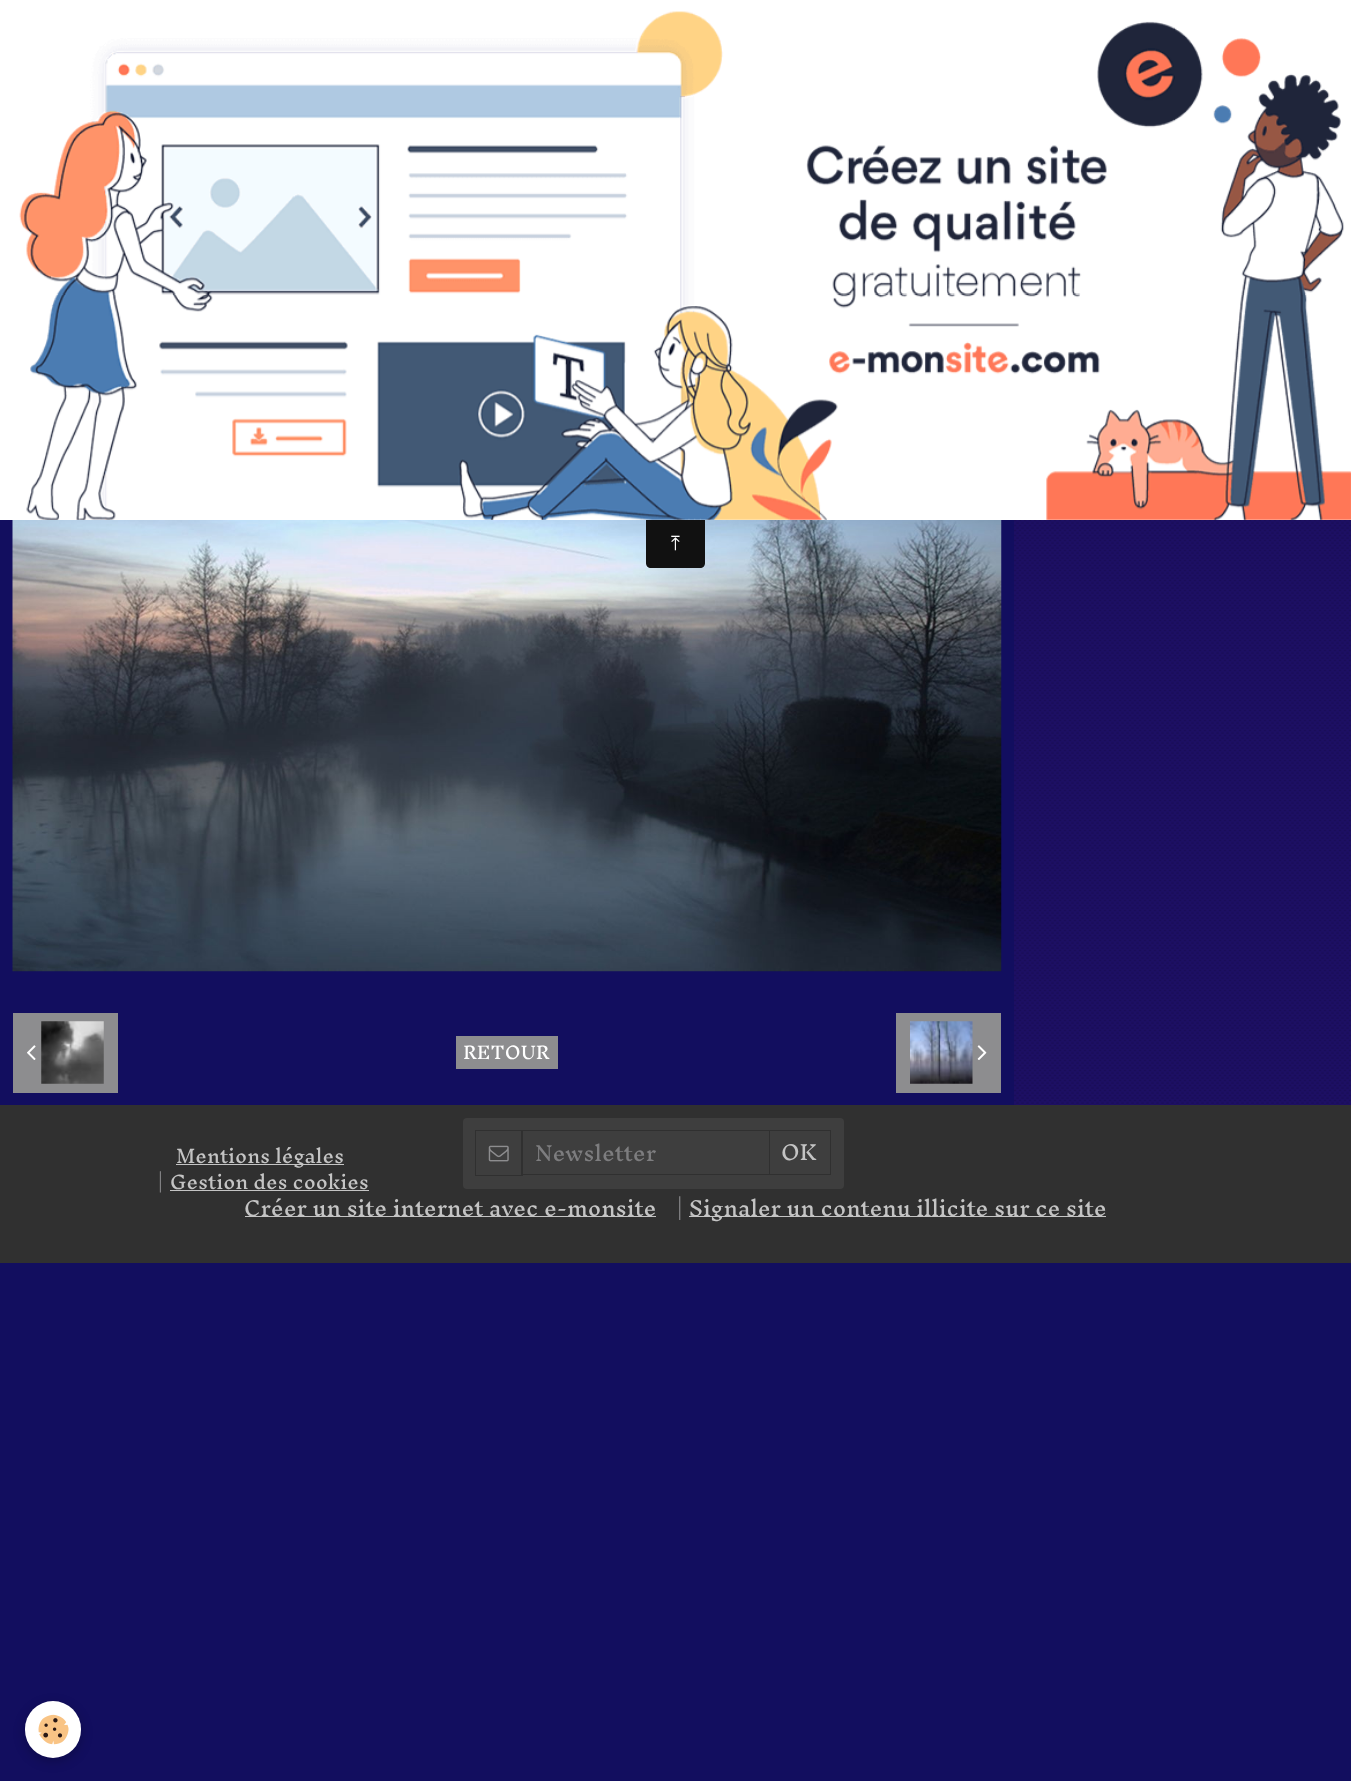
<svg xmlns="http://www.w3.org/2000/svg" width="1351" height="1781">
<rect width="100%" height="100%" fill="#120e5f"/>
<rect width="1351" height="520" fill="#fff"/>
<image x="19" y="11" width="1332" height="509" href="media/1.png"/>
<image x="12" y="520" width="990" height="452" href="media/2.png"/>
<path d="M646 520h59v43c0 3-2 5-5 5h-49c-3 0-5-2-5-5z" fill="#111"/>
<text x="671" y="550" style="font-family:FreeSerif;font-size:20px;fill:#fff">⤒</text>
<rect x="13" y="1013" width="105" height="80" fill="#8d8d8f"/>
<image x="27" y="1045" width="9" height="15" href="media/3.png"/>
<image x="41" y="1021" width="63" height="63" href="media/4.png"/>
<rect x="456" y="1036" width="102" height="33" fill="#8d8d8f"/>
<text x="463" y="1059" style="font-family:Inknut Antiqua;font-size:17px;fill:#fff">RETOUR</text>
<rect x="896" y="1013" width="105" height="80" fill="#8d8d8f"/>
<image x="910" y="1021" width="63" height="63" href="media/5.png"/>
<image x="977" y="1045" width="10" height="15" href="media/6.png"/>
<rect x="1014" y="520" width="337" height="585" fill="#1e1066"/>
<image x="1014" y="520" width="337" height="585" href="media/7.png"/>
<rect y="1105" width="1351" height="158" fill="#303030"/>
<rect x="176" y="1164" width="168" height="1" fill="#c4c4c4"/>
<text x="176" y="1163" style="font-family:Inknut Antiqua;font-size:18px;fill:#c4c4c4">Mentions légales</text>
<text x="157" y="1189" style="font-family:Inknut Antiqua;font-size:18px;fill:#8d8d8f">|</text>
<text x="170" y="1189" style="font-family:Inknut Antiqua;font-size:18px;fill:#c4c4c4">Gestion des cookies</text>
<rect x="170" y="1190" width="199" height="1" fill="#c4c4c4"/>
<rect x="463" y="1118" width="381" height="71" rx="4" fill="#3e3e3e"/>
<rect x="475.5" y="1130.5" width="47" height="45" fill="none" stroke="#303030"/>
<image x="488" y="1145" width="21" height="17" href="media/8.png"/>
<rect x="521.5" y="1130.5" width="248" height="44" fill="none" stroke="#303030"/>
<text x="535" y="1161" style="font-family:Inknut Antiqua;font-size:20px;fill:#7d7d7f">Newsletter</text>
<rect x="769" y="1130" width="62" height="1" fill="#303030"/>
<rect x="830" y="1130" width="1" height="45" fill="#303030"/>
<rect x="769" y="1174" width="62" height="1" fill="#303030"/>
<text x="781" y="1160" style="font-family:Inknut Antiqua;font-size:20px;fill:#c4c4c4">OK</text>
<rect x="245" y="1216" width="411" height="1" fill="#c4c4c4"/>
<text x="244" y="1216" style="font-family:Inknut Antiqua;font-size:20px;fill:#c4c4c4">Créer un site internet avec e-monsite</text>
<text x="676" y="1216" style="font-family:Inknut Antiqua;font-size:20px;fill:#8d8d8f">|</text>
<rect x="689" y="1216" width="417" height="1" fill="#c4c4c4"/>
<text x="689" y="1216" style="font-family:Inknut Antiqua;font-size:20px;fill:#c4c4c4">Signaler un contenu illicite sur ce site</text>
<rect x="25" y="1705" width="56" height="56" rx="28" fill="#0000003d" filter="blur(6px)"/>
<rect x="25" y="1701" width="56" height="57" rx="28" fill="#fff"/>
<image x="38" y="1714" width="31" height="31" href="media/9.png"/>
</svg>
